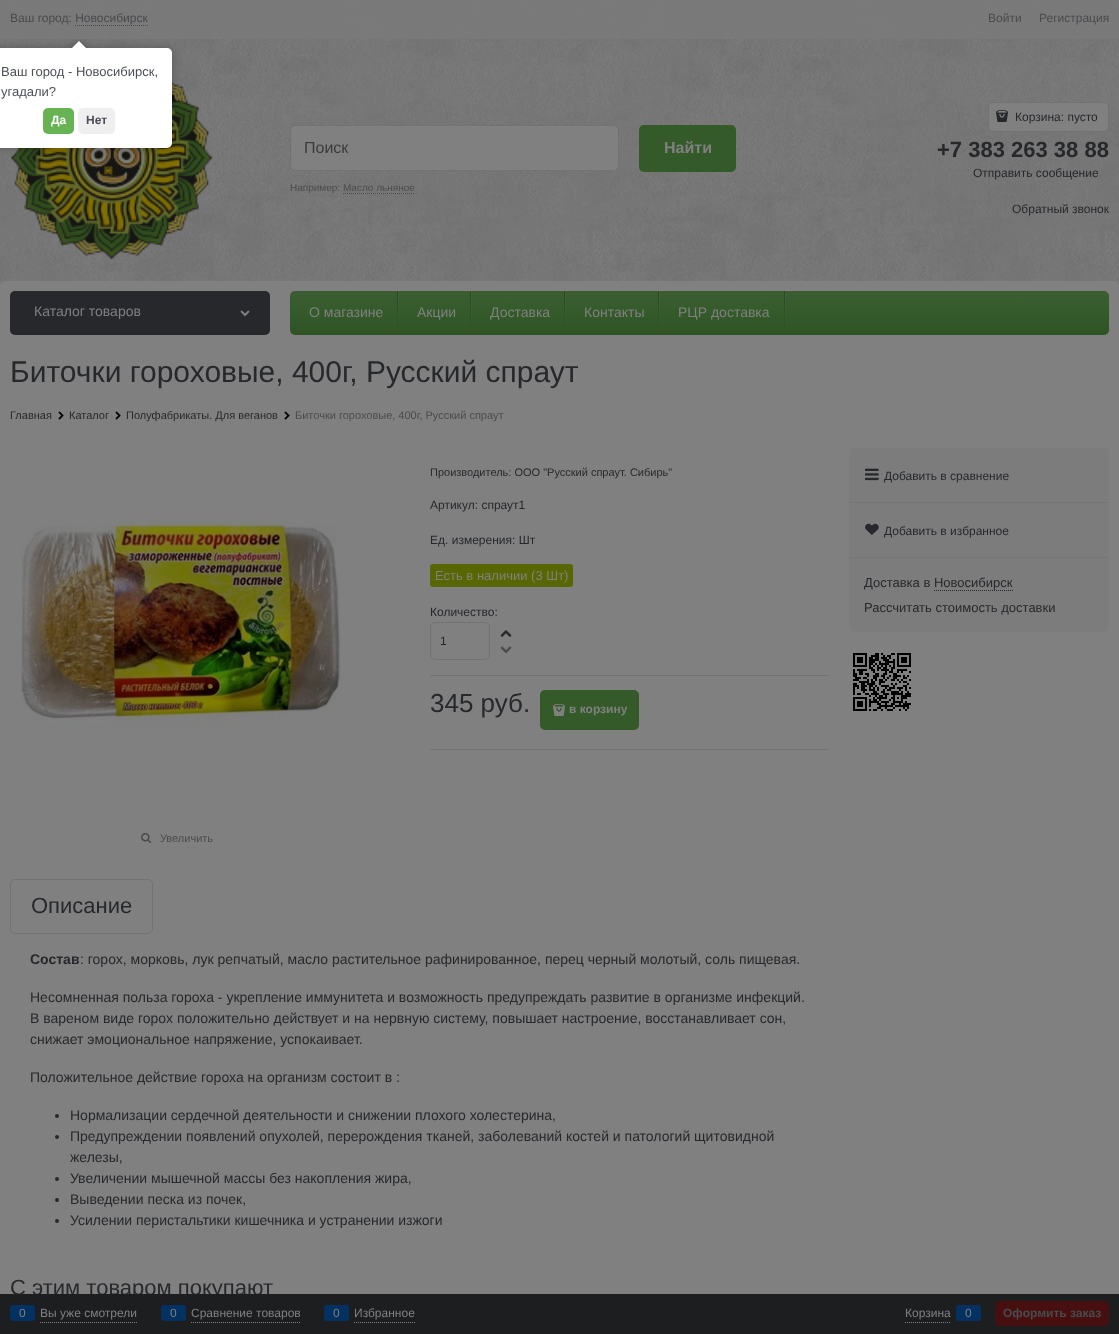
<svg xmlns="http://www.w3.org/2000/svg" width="1119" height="1334">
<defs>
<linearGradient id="g1" gradientUnits="userSpaceOnUse" x1="700" y1="291" x2="700" y2="335"><stop offset="0" stop-color="#3c5e33"/><stop offset="0.5" stop-color="#345a2a"/><stop offset="1" stop-color="#2e5224"/></linearGradient>
<linearGradient id="g2" gradientUnits="userSpaceOnUse" x1="399" y1="291" x2="399" y2="335"><stop offset="0" stop-color="#808080" stop-opacity="0.14"/><stop offset="0.72" stop-color="#808080" stop-opacity="0.02"/><stop offset="1" stop-color="#808080" stop-opacity="0"/></linearGradient>
<linearGradient id="g3" gradientUnits="userSpaceOnUse" x1="398" y1="291" x2="398" y2="335"><stop offset="0" stop-color="#1d1d1d" stop-opacity="0.39"/><stop offset="0.17" stop-color="#1d1d1d" stop-opacity="0.33"/><stop offset="0.61" stop-color="#1d1d1d" stop-opacity="0.12"/><stop offset="0.96" stop-color="#1d1d1d" stop-opacity="0.01"/><stop offset="0.98" stop-color="#808080" stop-opacity="0.01"/><stop offset="1" stop-color="#808080" stop-opacity="0"/></linearGradient>
<linearGradient id="g4" gradientUnits="userSpaceOnUse" x1="472" y1="291" x2="472" y2="335"><stop offset="0" stop-color="#808080" stop-opacity="0.14"/><stop offset="0.72" stop-color="#808080" stop-opacity="0.02"/><stop offset="1" stop-color="#808080" stop-opacity="0"/></linearGradient>
<linearGradient id="g5" gradientUnits="userSpaceOnUse" x1="471" y1="291" x2="471" y2="335"><stop offset="0" stop-color="#1d1d1d" stop-opacity="0.39"/><stop offset="0.17" stop-color="#1d1d1d" stop-opacity="0.33"/><stop offset="0.61" stop-color="#1d1d1d" stop-opacity="0.12"/><stop offset="0.96" stop-color="#1d1d1d" stop-opacity="0.01"/><stop offset="0.98" stop-color="#808080" stop-opacity="0.01"/><stop offset="1" stop-color="#808080" stop-opacity="0"/></linearGradient>
<linearGradient id="g6" gradientUnits="userSpaceOnUse" x1="566" y1="291" x2="566" y2="335"><stop offset="0" stop-color="#808080" stop-opacity="0.14"/><stop offset="0.72" stop-color="#808080" stop-opacity="0.02"/><stop offset="1" stop-color="#808080" stop-opacity="0"/></linearGradient>
<linearGradient id="g7" gradientUnits="userSpaceOnUse" x1="565" y1="291" x2="565" y2="335"><stop offset="0" stop-color="#1d1d1d" stop-opacity="0.39"/><stop offset="0.17" stop-color="#1d1d1d" stop-opacity="0.33"/><stop offset="0.61" stop-color="#1d1d1d" stop-opacity="0.12"/><stop offset="0.96" stop-color="#1d1d1d" stop-opacity="0.01"/><stop offset="0.98" stop-color="#808080" stop-opacity="0.01"/><stop offset="1" stop-color="#808080" stop-opacity="0"/></linearGradient>
<linearGradient id="g8" gradientUnits="userSpaceOnUse" x1="660" y1="291" x2="660" y2="335"><stop offset="0" stop-color="#808080" stop-opacity="0.14"/><stop offset="0.72" stop-color="#808080" stop-opacity="0.02"/><stop offset="1" stop-color="#808080" stop-opacity="0"/></linearGradient>
<linearGradient id="g9" gradientUnits="userSpaceOnUse" x1="659" y1="291" x2="659" y2="335"><stop offset="0" stop-color="#1d1d1d" stop-opacity="0.39"/><stop offset="0.17" stop-color="#1d1d1d" stop-opacity="0.33"/><stop offset="0.61" stop-color="#1d1d1d" stop-opacity="0.12"/><stop offset="0.96" stop-color="#1d1d1d" stop-opacity="0.01"/><stop offset="0.98" stop-color="#808080" stop-opacity="0.01"/><stop offset="1" stop-color="#808080" stop-opacity="0"/></linearGradient>
<linearGradient id="g10" gradientUnits="userSpaceOnUse" x1="786" y1="291" x2="786" y2="335"><stop offset="0" stop-color="#808080" stop-opacity="0.14"/><stop offset="0.72" stop-color="#808080" stop-opacity="0.02"/><stop offset="1" stop-color="#808080" stop-opacity="0"/></linearGradient>
<linearGradient id="g11" gradientUnits="userSpaceOnUse" x1="785" y1="291" x2="785" y2="335"><stop offset="0" stop-color="#1d1d1d" stop-opacity="0.39"/><stop offset="0.17" stop-color="#1d1d1d" stop-opacity="0.33"/><stop offset="0.61" stop-color="#1d1d1d" stop-opacity="0.12"/><stop offset="0.96" stop-color="#1d1d1d" stop-opacity="0.01"/><stop offset="0.98" stop-color="#808080" stop-opacity="0.01"/><stop offset="1" stop-color="#808080" stop-opacity="0"/></linearGradient>
<clipPath id="clip1"><rect x="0" y="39" width="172" height="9"/></clipPath>
<clipPath id="clip2"><rect y="39" width="172" height="9"/></clipPath>
</defs>
<rect width="100%" height="100%" fill="#fff"/>
<image x="0" y="0" width="1119" height="286" href="media/1.png"/>
<rect width="1119" height="39" fill="#7a7a7ae6"/>
<text x="10" y="22" style="font-family:Liberation Sans;font-size:12px;fill:#4a4b4e">Ваш город: Новосибирск</text>
<path d="M75 25.5h73" fill="none" stroke="#4a4b4e" stroke-dasharray="1 1"/>
<text x="988" y="22" style="font-family:Liberation Sans;font-size:12px;fill:#4a4b4e">Войти</text>
<text x="1039" y="22" style="font-family:Liberation Sans;font-size:12px;fill:#4a4b4e">Регистрация</text>
<image x="10" y="82" width="203" height="177" href="media/2.png"/>
<rect x="290.5" y="125.5" width="328" height="45" rx="4.5" fill="#808080" stroke="#717272"/>
<text x="304" y="153" style="font-family:Liberation Sans;font-size:16px;fill:#3b3b3b">Поиск</text>
<text x="290" y="191" style="font-family:Liberation Sans;font-size:10px;fill:#4a4b4e">Например: Масло льняное</text>
<path d="M343 193.5h72" fill="none" stroke="#4a4b4e" stroke-dasharray="1 1"/>
<rect x="639" y="125" width="97" height="47" rx="5" fill="#345a2a"/>
<text x="664" y="153" style="font-family:Liberation Sans;font-size:16px;font-weight:bold;fill:#808080">Найти</text>
<rect x="988.5" y="102.5" width="120" height="29" rx="4.5" fill="#808080" stroke="#717272"/>
<image x="996" y="110" width="12" height="12" href="media/3.png"/>
<text x="1015" y="121" style="font-family:Liberation Sans;font-size:12px;fill:#26282c">Корзина: пусто</text>
<text x="937" y="157" style="font-family:Liberation Sans;font-size:22px;font-weight:bold;fill:#26282c">+7 383 263 38 88</text>
<text x="973" y="177" style="font-family:Liberation Sans;font-size:12px;fill:#26282c">Отправить сообщение</text>
<text x="1012" y="213" style="font-family:Liberation Sans;font-size:12px;fill:#26282c">Обратный звонок</text>
<rect y="281" width="1119" height="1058" rx="5" fill="#808080"/>
<rect x="10" y="291" width="260" height="44" rx="5" fill="#26282c"/>
<text x="34" y="316" style="font-family:Liberation Sans;font-size:14px;fill:#808080">Каталог товаров</text>
<image x="240" y="310" width="10" height="7" href="media/4.png"/>
<rect x="290" y="291" width="819" height="44" rx="5" fill="url(#g1)"/>
<text x="309" y="317" style="font-family:Liberation Sans;font-size:14px;fill:#808080">О магазине</text>
<rect x="398" y="291" width="1" height="31" fill="url(#g2)"/>
<rect x="397" y="291" width="1" height="44" fill="url(#g3)"/>
<text x="417" y="317" style="font-family:Liberation Sans;font-size:14px;fill:#808080">Акции</text>
<rect x="471" y="291" width="1" height="31" fill="url(#g4)"/>
<rect x="470" y="291" width="1" height="44" fill="url(#g5)"/>
<text x="490" y="317" style="font-family:Liberation Sans;font-size:14px;fill:#808080">Доставка</text>
<rect x="565" y="291" width="1" height="31" fill="url(#g6)"/>
<rect x="564" y="291" width="1" height="44" fill="url(#g7)"/>
<text x="584" y="317" style="font-family:Liberation Sans;font-size:14px;fill:#808080">Контакты</text>
<rect x="659" y="291" width="1" height="31" fill="url(#g8)"/>
<rect x="658" y="291" width="1" height="44" fill="url(#g9)"/>
<text x="678" y="317" style="font-family:Liberation Sans;font-size:14px;fill:#808080">РЦР доставка</text>
<rect x="785" y="291" width="1" height="31" fill="url(#g10)"/>
<rect x="784" y="291" width="1" height="44" fill="url(#g11)"/>
<text x="10" y="382" style="font-family:Liberation Sans;font-size:30px;fill:#26282c">Биточки гороховые, 400г, Русский спраут</text>
<text x="10" y="419" style="font-family:Liberation Sans;font-size:11px;fill:#26282c">Главная</text>
<image x="58" y="411" width="6" height="9" href="media/5.png"/>
<text x="69" y="419" style="font-family:Liberation Sans;font-size:11px;fill:#26282c">Каталог</text>
<image x="115" y="411" width="6" height="9" href="media/5.png"/>
<text x="126" y="419" style="font-family:Liberation Sans;font-size:11px;fill:#26282c">Полуфабрикаты. Для веганов</text>
<image x="284" y="411" width="6" height="9" href="media/5.png"/>
<text x="295" y="419" style="font-family:Liberation Sans;font-size:11px;fill:#4a4b4e">Биточки гороховые, 400г, Русский спраут</text>
<text x="430" y="476" style="font-family:Liberation Sans;font-size:11px;fill:#26282c">Производитель: ООО "Русский спраут. Сибирь"</text>
<text x="430" y="509" style="font-family:Liberation Sans;font-size:12px;fill:#26282c">Артикул: спраут1</text>
<text x="430" y="544" style="font-family:Liberation Sans;font-size:12px;fill:#26282c">Ед. измерения: Шт</text>
<rect x="430" y="564" width="143" height="23" rx="3" fill="#596702"/>
<text x="435" y="580" style="font-family:Liberation Sans;font-size:13px;fill:#808080">Есть в наличии (3 Шт)</text>
<text x="430" y="616" style="font-family:Liberation Sans;font-size:12px;fill:#26282c">Количество:</text>
<rect x="430.5" y="622.5" width="59" height="37" rx="4.5" fill="none" stroke="#717272"/>
<text x="440" y="645" style="font-family:Liberation Sans;font-size:12px;fill:#26282c">1</text>
<image x="500" y="630" width="12" height="7" href="media/6.png"/>
<image x="500" y="646" width="12" height="8" href="media/7.png"/>
<rect x="430" y="675" width="399" height="1" fill="#717272"/>
<rect x="430" y="749" width="399" height="1" fill="#717272"/>
<text x="430" y="712" style="font-family:Liberation Sans;font-size:26px;fill:#26282c">345 руб.</text>
<rect x="540" y="690" width="99" height="40" rx="5" fill="#345a2a"/>
<image x="553" y="704" width="12" height="12" href="media/8.png"/>
<text x="569" y="713" style="font-family:Liberation Sans;font-size:12px;font-weight:bold;fill:#808080">в корзину</text>
<image x="21" y="522" width="320" height="206" href="media/9.png"/>
<image x="141" y="832" width="11" height="12" href="media/10.png"/>
<text x="160" y="842" style="font-family:Liberation Sans;font-size:11px;fill:#4a4b4e">Увеличить</text>
<rect x="10.5" y="879.5" width="142" height="54" rx="4.5" fill="none" stroke="#717272"/>
<text x="31" y="913" style="font-family:Liberation Sans;font-size:22px;fill:#26282c">Описание</text>
<text x="30" y="964" style="font-family:Liberation Sans;font-size:14px;font-weight:bold;fill:#26282c">Состав</text>
<text x="80" y="964" style="font-family:Liberation Sans;font-size:14px;fill:#26282c">: горох, морковь, лук репчатый, масло растительное рафинированное, перец черный молотый, соль пищевая.</text>
<text x="30" y="1002" style="font-family:Liberation Sans;font-size:14px;fill:#26282c">Несомненная польза гороха - укрепление иммунитета и возможность предупреждать развитие в организме инфекций.</text>
<text x="30" y="1023" style="font-family:Liberation Sans;font-size:14px;fill:#26282c">В вареном виде горох положительно действует и на нервную систему, повышает настроение, восстанавливает сон,</text>
<text x="30" y="1044" style="font-family:Liberation Sans;font-size:14px;fill:#26282c">снижает эмоциональное напряжение, успокаивает.</text>
<text x="30" y="1082" style="font-family:Liberation Sans;font-size:14px;fill:#26282c">Положительное действие гороха на организм состоит в :</text>
<circle cx="57" cy="1116" r="2" fill="#26282c"/>
<text x="70" y="1120" style="font-family:Liberation Sans;font-size:14px;fill:#26282c">Нормализации сердечной деятельности и снижении плохого холестерина,</text>
<circle cx="57" cy="1137" r="2" fill="#26282c"/>
<text x="70" y="1141" style="font-family:Liberation Sans;font-size:14px;fill:#26282c">Предупреждении появлений опухолей, перерождения тканей, заболеваний костей и патологий щитовидной</text>
<text x="70" y="1162" style="font-family:Liberation Sans;font-size:14px;fill:#26282c">железы,</text>
<circle cx="57" cy="1179" r="2" fill="#26282c"/>
<text x="70" y="1183" style="font-family:Liberation Sans;font-size:14px;fill:#26282c">Увеличении мышечной массы без накопления жира,</text>
<circle cx="57" cy="1200" r="2" fill="#26282c"/>
<text x="70" y="1204" style="font-family:Liberation Sans;font-size:14px;fill:#26282c">Выведении песка из почек,</text>
<circle cx="57" cy="1221" r="2" fill="#26282c"/>
<text x="70" y="1225" style="font-family:Liberation Sans;font-size:14px;fill:#26282c">Усилении перистальтики кишечника и устранении изжоги</text>
<text x="10" y="1295" style="font-family:Liberation Sans;font-size:22px;fill:#26282c">С этим товаром покупают</text>
<rect x="849" y="448" width="260" height="184" rx="5" fill="#7c7c7c"/>
<rect x="849" y="502" width="260" height="1" fill="#757575"/>
<image x="865" y="468" width="14" height="13" href="media/11.png"/>
<text x="884" y="480" style="font-family:Liberation Sans;font-size:12px;fill:#26282c">Добавить в сравнение</text>
<rect x="849" y="557" width="260" height="1" fill="#757575"/>
<image x="865" y="523" width="14" height="12" href="media/12.png"/>
<text x="884" y="535" style="font-family:Liberation Sans;font-size:12px;fill:#26282c">Добавить в избранное</text>
<text x="864" y="587" style="font-family:Liberation Sans;font-size:13px;fill:#26282c">Доставка в Новосибирск</text>
<path d="M934 590.5h79" fill="none" stroke="#26282c" stroke-dasharray="1 1"/>
<text x="864" y="612" style="font-family:Liberation Sans;font-size:13px;fill:#26282c">Рассчитать стоимость доставки</text>
<image x="853" y="653" width="58" height="58" href="media/13.png"/>
<rect y="1294" width="1119" height="40" fill="#1c1e20"/>
<path d="M40 1322.5h97" fill="none" stroke="#808080" stroke-dasharray="1 1"/>
<rect x="10" y="1305" width="25" height="16" rx="3" fill="#033161"/>
<text x="19" y="1317" style="font-family:Liberation Sans;font-size:12px;fill:#808080">0</text>
<text x="40" y="1317" style="font-family:Liberation Sans;font-size:12px;fill:#808080">Вы уже смотрели</text>
<path d="M191 1322.5h109" fill="none" stroke="#808080" stroke-dasharray="1 1"/>
<rect x="161" y="1305" width="25" height="16" rx="3" fill="#033161"/>
<text x="170" y="1317" style="font-family:Liberation Sans;font-size:12px;fill:#808080">0</text>
<text x="191" y="1317" style="font-family:Liberation Sans;font-size:12px;fill:#808080">Сравнение товаров</text>
<path d="M354 1322.5h61" fill="none" stroke="#808080" stroke-dasharray="1 1"/>
<rect x="324" y="1305" width="25" height="16" rx="3" fill="#033161"/>
<text x="333" y="1317" style="font-family:Liberation Sans;font-size:12px;fill:#808080">0</text>
<text x="354" y="1317" style="font-family:Liberation Sans;font-size:12px;fill:#808080">Избранное</text>
<path d="M905 1322.5h46" fill="none" stroke="#808080" stroke-dasharray="1 1"/>
<text x="905" y="1317" style="font-family:Liberation Sans;font-size:12px;fill:#808080">Корзина</text>
<rect x="956" y="1305" width="25" height="16" rx="3" fill="#033161"/>
<text x="965" y="1317" style="font-family:Liberation Sans;font-size:12px;fill:#808080">0</text>
<rect x="995" y="1301" width="114" height="25" rx="5" fill="#470f10"/>
<text x="1003" y="1317" style="font-family:Liberation Sans;font-size:12px;font-weight:bold;fill:#4a4b4e">Оформить заказ</text>
<rect x="-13" y="48" width="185" height="100" rx="5" fill="#00000040" filter="blur(4.5px)"/>
<rect x="-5" y="48" width="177" height="100" rx="5" fill="#fff"/>
<g clip-path="url(#clip1)">
<rect x="74" y="43" width="10" height="10" fill="#00000040" filter="blur(4.5px)"/>
</g>
<g clip-path="url(#clip2)">
<path d="M79 41l7 7l-7 7l-7-7z" fill="#fff"/>
</g>
<text x="1" y="76" style="font-family:Liberation Sans;font-size:13px;fill:#4b4f58">Ваш город - Новосибирск,</text>
<text x="1" y="96" style="font-family:Liberation Sans;font-size:13px;fill:#4b4f58">угадали?</text>
<rect x="43" y="108" width="31" height="26" rx="5" fill="#67b353"/>
<text x="51" y="124" style="font-family:Liberation Sans;font-size:12px;font-weight:bold;fill:#fff">Да</text>
<rect x="78" y="108" width="37" height="26" rx="5" fill="#efefef"/>
<text x="86" y="124" style="font-family:Liberation Sans;font-size:12px;font-weight:bold;fill:#4b4f58">Нет</text>
</svg>
